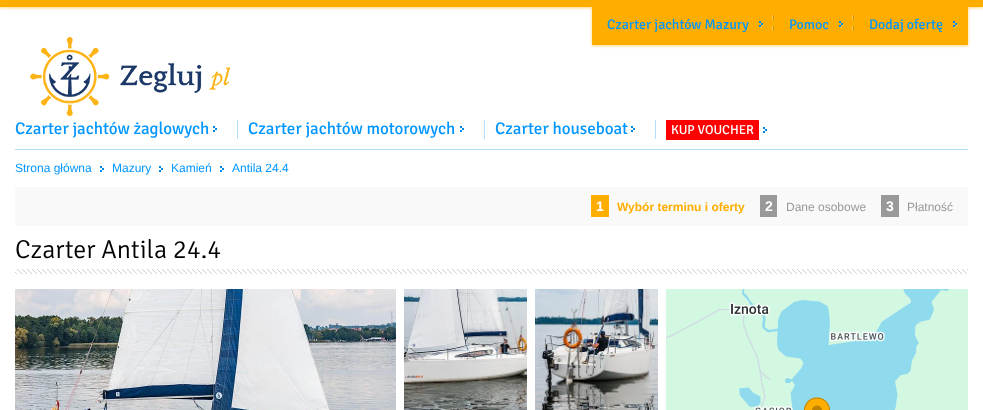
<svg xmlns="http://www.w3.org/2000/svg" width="983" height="410">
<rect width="100%" height="100%" fill="#fff"/>
<rect y="1" width="983" height="7" fill="#ffae0080" filter="blur(1.5px)"/>
<rect width="983" height="7" fill="#ffae00"/>
<rect x="592" y="1" width="376" height="45" fill="#ffae0080" filter="blur(1.5px)"/>
<rect x="592" y="7" width="376" height="38" fill="#ffae00"/>
<image x="772" y="15" width="2" height="16" href="media/1.png"/>
<image x="759" y="21" width="5" height="7" href="media/2.png"/>
<text x="607" y="29" style="font-family:Signika;font-size:14px;fill:#0096ff">Czarter jachtów Mazury</text>
<image x="852" y="15" width="2" height="16" href="media/1.png"/>
<image x="839" y="21" width="5" height="7" href="media/2.png"/>
<text x="789" y="29" style="font-family:Signika;font-size:14px;fill:#0096ff">Pomoc</text>
<image x="953" y="21" width="5" height="7" href="media/2.png"/>
<text x="869" y="29" style="font-family:Signika;font-size:14px;fill:#0096ff">Dodaj ofertę</text>
<image x="30" y="37" width="200" height="79" href="media/3.png"/>
<rect x="15" y="149" width="953" height="1" fill="#b2dfff"/>
<rect x="237" y="120" width="1" height="19" fill="#b2dfff"/>
<image x="213" y="126" width="4" height="6" href="media/4.png"/>
<text x="15" y="134" style="font-family:Signika;font-size:17px;fill:#0096ff">Czarter jachtów żaglowych</text>
<rect x="484" y="120" width="1" height="19" fill="#b2dfff"/>
<image x="460" y="126" width="4" height="6" href="media/4.png"/>
<text x="248" y="134" style="font-family:Signika;font-size:17px;fill:#0096ff">Czarter jachtów motorowych</text>
<rect x="655" y="120" width="1" height="19" fill="#b2dfff"/>
<image x="631" y="126" width="4" height="6" href="media/4.png"/>
<text x="495" y="134" style="font-family:Signika;font-size:17px;fill:#0096ff">Czarter houseboat</text>
<image x="763" y="127" width="4" height="6" href="media/4.png"/>
<rect x="666" y="120" width="93" height="20" fill="#f00"/>
<text x="671" y="134" style="font-family:Signika;font-size:13px;fill:#fff">KUP VOUCHER</text>
<text x="15" y="172" style="font-family:Liberation Sans;font-size:12px;fill:#0096ff">Strona główna</text>
<image x="100" y="166" width="4" height="6" href="media/4.png"/>
<text x="112" y="172" style="font-family:Liberation Sans;font-size:12px;fill:#0096ff">Mazury</text>
<image x="159" y="166" width="4" height="6" href="media/4.png"/>
<text x="171" y="172" style="font-family:Liberation Sans;font-size:12px;fill:#0096ff">Kamień</text>
<image x="220" y="166" width="4" height="6" href="media/4.png"/>
<text x="232" y="172" style="font-family:Liberation Sans;font-size:12px;fill:#0096ff">Antila 24.4</text>
<image x="15" y="269" width="953" height="5" href="media/5.png"/>
<rect x="15" y="187" width="953" height="39" fill="#f9f9f9"/>
<rect x="591" y="195" width="18" height="22" fill="#ffae00"/>
<text x="596" y="211" style="font-family:Liberation Sans;font-size:14px;font-weight:bold;fill:#fff">1</text>
<text x="617" y="211" style="font-family:Liberation Sans;font-size:12px;font-weight:bold;fill:#ffae00">Wybór terminu i oferty</text>
<rect x="760" y="195" width="17" height="22" fill="#999"/>
<text x="765" y="211" style="font-family:Liberation Sans;font-size:14px;font-weight:bold;fill:#fff">2</text>
<text x="786" y="211" style="font-family:Liberation Sans;font-size:12px;fill:#999">Dane osobowe</text>
<rect x="881" y="195" width="18" height="22" fill="#999"/>
<text x="886" y="211" style="font-family:Liberation Sans;font-size:14px;font-weight:bold;fill:#fff">3</text>
<text x="907" y="211" style="font-family:Liberation Sans;font-size:12px;fill:#999">Płatność</text>
<text x="15" y="258" style="font-family:Signika;font-size:26px;font-weight:300;fill:#000">Czarter Antila 24.4</text>
<image x="15" y="289" width="381" height="121" href="media/6.png"/>
<image x="404" y="289" width="123" height="121" href="media/7.png"/>
<image x="535" y="289" width="123" height="121" href="media/8.png"/>
<image x="666" y="289" width="302" height="121" href="media/9.png"/>
</svg>
